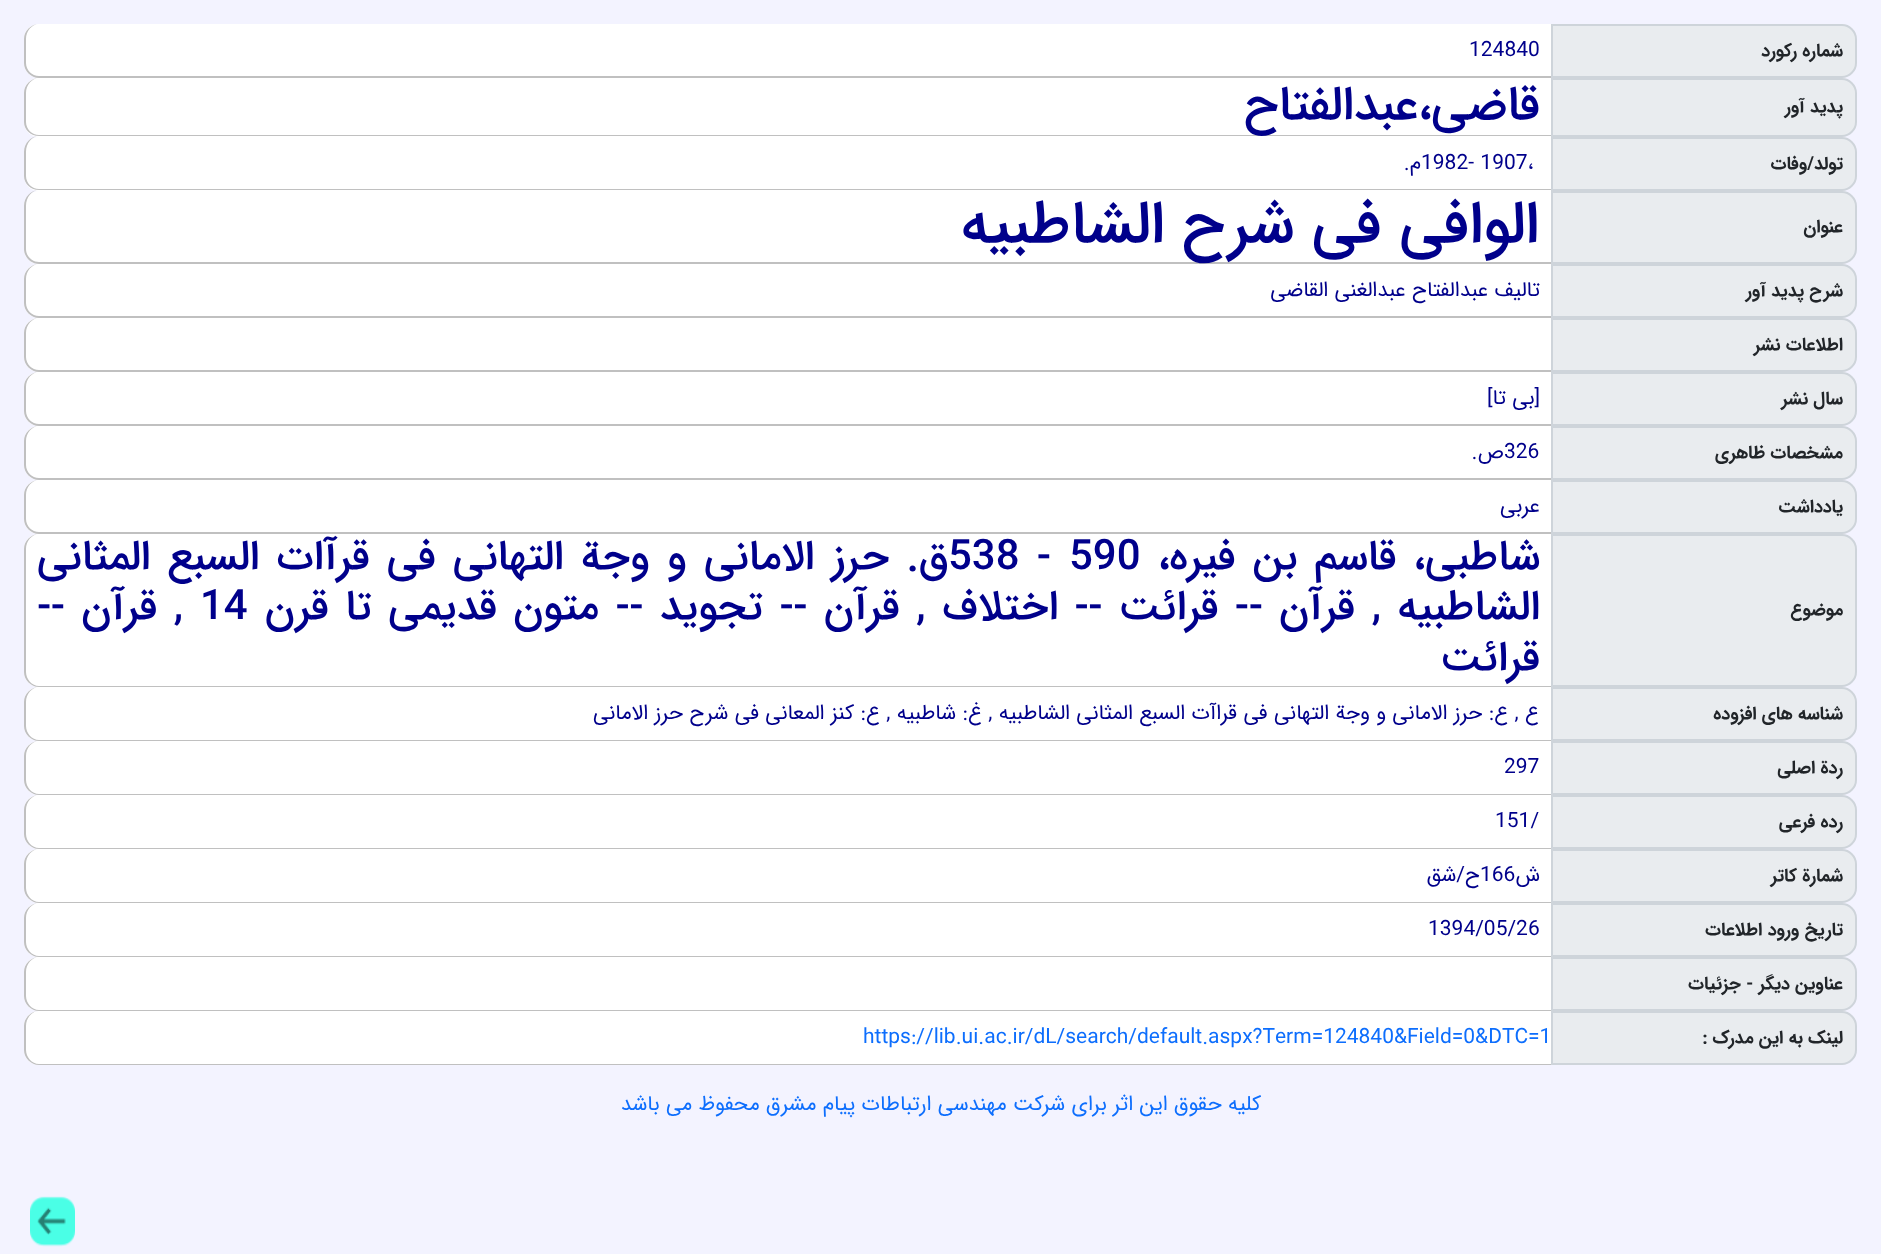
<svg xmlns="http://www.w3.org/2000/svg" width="1881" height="1254">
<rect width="100%" height="100%" fill="#f3f3ff"/>
<path d="M1552 25h290c7.5 0 14 6.5 14 14v24c0 7.5-6.5 14-14 14h-290z" fill="#e9ecef" stroke="#ced4da" stroke-width="2"/>
<text x="1843" y="56" style="font-family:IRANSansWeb;font-size:18px;font-weight:bold;direction:rtl;fill:#212529">شماره ركورد</text>
<path d="M39 24h1512v54h-1512c-8.5 0-15-6.5-15-15v-24c0-8.5 6.5-15 15-15z" fill="#fff"/>
<path d="M39 24h1512v54h-1512c-8 0-15-7-15-15v-24c0-8 7-15 15-15zm0 0h1512v52h-1512c-7 0-13-6-13-13v-24c0-8 6-15 13-15z" fill="#c0c0c0" fill-rule="evenodd"/>
<text x="1469" y="56" style="font-family:IRANSansWeb;font-size:21px;fill:#00008b">124840</text>
<path d="M1552 79h290c7.5 0 14 6.5 14 14v29c0 7.5-6.5 14-14 14h-290z" fill="#e9ecef" stroke="#ced4da" stroke-width="2"/>
<text x="1843" y="112" style="font-family:IRANSansWeb;font-size:18px;font-weight:bold;direction:rtl;fill:#212529">پديد آور</text>
<path d="M39 78h1512v59h-1512c-8.5 0-15-6.5-15-15v-29c0-8.5 6.5-15 15-15z" fill="#fff"/>
<path d="M39 78h1512v58h-1512c-8 0-15-6-15-14v-29c0-8 7-15 15-15zm0 0h1512v57h-1512c-7 0-13-6-13-13v-29c0-8 6-15 13-15z" fill="#c0c0c0" fill-rule="evenodd"/>
<text x="1540" y="119" style="font-family:IRANSansWeb;font-size:48px;font-weight:500;direction:rtl;fill:#00008b">قاضي،عبدالفتاح</text>
<path d="M1552 138h290c7.5 0 14 6.5 14 14v24c0 7.5-6.5 14-14 14h-290z" fill="#e9ecef" stroke="#ced4da" stroke-width="2"/>
<text x="1843" y="169" style="font-family:IRANSansWeb;font-size:18px;font-weight:bold;direction:rtl;fill:#212529">تولد/وفات</text>
<path d="M39 137h1512v54h-1512c-8.5 0-15-6.5-15-15v-24c0-8.5 6.5-15 15-15z" fill="#fff"/>
<path d="M39 136h1512v54h-1512c-8 0-15-6-15-14v-24c0-9 7-16 15-16zm0 0h1512v53h-1512c-7 0-13-6-13-13v-24c0-9 6-16 13-16z" fill="#c0c0c0" fill-rule="evenodd"/>
<text x="1421" y="169" style="font-family:IRANSansWeb;font-size:21px;fill:#00008b">1982- 1907،</text>
<text x="1421" y="169" style="font-family:IRANSansWeb;font-size:21px;direction:rtl;fill:#00008b">م.</text>
<path d="M1552 192h290c7.5 0 14 6.5 14 14v43c0 7.5-6.5 14-14 14h-290z" fill="#e9ecef" stroke="#ced4da" stroke-width="2"/>
<text x="1843" y="232" style="font-family:IRANSansWeb;font-size:18px;font-weight:bold;direction:rtl;fill:#212529">عنوان</text>
<path d="M39 191h1512v73h-1512c-8.5 0-15-6.5-15-15v-43c0-8.5 6.5-15 15-15z" fill="#fff"/>
<path d="M39 190h1512v74h-1512c-8 0-15-7-15-15v-43c0-9 7-16 15-16zm0 0h1512v72h-1512c-7 0-13-6-13-13v-43c0-9 6-16 13-16z" fill="#c0c0c0" fill-rule="evenodd"/>
<text x="1539" y="242" style="font-family:IRANSansWeb;font-size:60px;font-weight:500;direction:rtl;fill:#00008b">الوافي في شرح الشاطبيه</text>
<path d="M1552 265h290c7.5 0 14 6.5 14 14v24c0 7.5-6.5 14-14 14h-290z" fill="#e9ecef" stroke="#ced4da" stroke-width="2"/>
<text x="1843" y="296" style="font-family:IRANSansWeb;font-size:18px;font-weight:bold;direction:rtl;fill:#212529">شرح پديد آور</text>
<path d="M39 264h1512v54h-1512c-8.5 0-15-6.5-15-15v-24c0-8.5 6.5-15 15-15z" fill="#fff"/>
<path d="M39 264h1512v54h-1512c-8 0-15-7-15-15v-24c0-8 7-15 15-15zm0 0h1512v52h-1512c-7 0-13-6-13-13v-24c0-8 6-15 13-15z" fill="#c0c0c0" fill-rule="evenodd"/>
<text x="1540" y="296" style="font-family:IRANSansWeb;font-size:21px;direction:rtl;fill:#00008b">تاليف عبدالفتاح عبدالغني القاضي</text>
<path d="M1552 319h290c7.5 0 14 6.5 14 14v24c0 7.5-6.5 14-14 14h-290z" fill="#e9ecef" stroke="#ced4da" stroke-width="2"/>
<text x="1843" y="350" style="font-family:IRANSansWeb;font-size:18px;font-weight:bold;direction:rtl;fill:#212529">اطلاعات نشر</text>
<path d="M39 318h1512v54h-1512c-8.5 0-15-6.5-15-15v-24c0-8.5 6.5-15 15-15z" fill="#fff"/>
<path d="M39 318h1512v54h-1512c-8 0-15-7-15-15v-24c0-8 7-15 15-15zm0 0h1512v52h-1512c-7 0-13-6-13-13v-24c0-8 6-15 13-15z" fill="#c0c0c0" fill-rule="evenodd"/>
<path d="M1552 373h290c7.5 0 14 6.5 14 14v24c0 7.5-6.5 14-14 14h-290z" fill="#e9ecef" stroke="#ced4da" stroke-width="2"/>
<text x="1843" y="404" style="font-family:IRANSansWeb;font-size:18px;font-weight:bold;direction:rtl;fill:#212529">سال نشر</text>
<path d="M39 372h1512v54h-1512c-8.5 0-15-6.5-15-15v-24c0-8.5 6.5-15 15-15z" fill="#fff"/>
<path d="M39 372h1512v54h-1512c-8 0-15-7-15-15v-24c0-8 7-15 15-15zm0 0h1512v52h-1512c-7 0-13-6-13-13v-24c0-8 6-15 13-15z" fill="#c0c0c0" fill-rule="evenodd"/>
<text x="1540" y="404" style="font-family:IRANSansWeb;font-size:21px;direction:rtl;fill:#00008b">[بي تا]</text>
<path d="M1552 427h290c7.5 0 14 6.5 14 14v24c0 7.5-6.5 14-14 14h-290z" fill="#e9ecef" stroke="#ced4da" stroke-width="2"/>
<text x="1843" y="458" style="font-family:IRANSansWeb;font-size:18px;font-weight:bold;direction:rtl;fill:#212529">مشخصات ظاهري</text>
<path d="M39 426h1512v54h-1512c-8.5 0-15-6.5-15-15v-24c0-8.5 6.5-15 15-15z" fill="#fff"/>
<path d="M39 426h1512v54h-1512c-8 0-15-7-15-15v-24c0-8 7-15 15-15zm0 0h1512v52h-1512c-7 0-13-6-13-13v-24c0-8 6-15 13-15z" fill="#c0c0c0" fill-rule="evenodd"/>
<text x="1504" y="458" style="font-family:IRANSansWeb;font-size:21px;fill:#00008b">326</text>
<text x="1504" y="458" style="font-family:IRANSansWeb;font-size:21px;direction:rtl;fill:#00008b">ص.</text>
<path d="M1552 481h290c7.5 0 14 6.5 14 14v24c0 7.5-6.5 14-14 14h-290z" fill="#e9ecef" stroke="#ced4da" stroke-width="2"/>
<text x="1843" y="512" style="font-family:IRANSansWeb;font-size:18px;font-weight:bold;direction:rtl;fill:#212529">يادداشت</text>
<path d="M39 480h1512v54h-1512c-8.5 0-15-6.5-15-15v-24c0-8.5 6.5-15 15-15z" fill="#fff"/>
<path d="M39 480h1512v54h-1512c-8 0-15-7-15-15v-24c0-8 7-15 15-15zm0 0h1512v52h-1512c-7 0-13-6-13-13v-24c0-8 6-15 13-15z" fill="#c0c0c0" fill-rule="evenodd"/>
<text x="1540" y="512" style="font-family:IRANSansWeb;font-size:21px;direction:rtl;fill:#00008b">عربي</text>
<path d="M1552 535h290c7.5 0 14 6.5 14 14v123c0 7.5-6.5 14-14 14h-290z" fill="#e9ecef" stroke="#ced4da" stroke-width="2"/>
<text x="1843" y="615" style="font-family:IRANSansWeb;font-size:18px;font-weight:bold;direction:rtl;fill:#212529">موضوع</text>
<path d="M39 534h1512v153h-1512c-8.5 0-15-6.5-15-15v-123c0-8.5 6.5-15 15-15z" fill="#fff"/>
<path d="M39 534h1512v153h-1512c-8 0-15-7-15-15v-123c0-8 7-15 15-15zm0 0h1512v152h-1512c-7 0-13-7-13-14v-123c0-8 6-15 13-15z" fill="#c0c0c0" fill-rule="evenodd"/>
<text x="1540" y="569" word-spacing="4.75" style="font-family:IRANSansWeb;font-size:42px;font-weight:500;direction:rtl;fill:#00008b">شاطبي، قاسم بن فيره،</text>
<text x="1069" y="569" style="font-family:IRANSansWeb;font-size:42px;font-weight:500;fill:#00008b">590</text>
<text x="1037" y="569" style="font-family:IRANSansWeb;font-size:42px;font-weight:500;fill:#00008b">-</text>
<text x="948" y="569" style="font-family:IRANSansWeb;font-size:42px;font-weight:500;fill:#00008b">538</text>
<text x="948" y="569" word-spacing="4.75" style="font-family:IRANSansWeb;font-size:42px;font-weight:500;direction:rtl;fill:#00008b">ق. حرز الاماني و وجة التهاني في قرآات السبع المثاني</text>
<text x="1540" y="619" word-spacing="3.9" style="font-family:IRANSansWeb;font-size:42px;font-weight:500;direction:rtl;fill:#00008b">الشاطبيه , قرآن -- قرائت -- اختلاف , قرآن -- تجويد -- متون قديمي تا قرن</text>
<text x="200" y="619" style="font-family:IRANSansWeb;font-size:42px;font-weight:500;fill:#00008b">14</text>
<text x="183" y="619" word-spacing="3.9" style="font-family:IRANSansWeb;font-size:42px;font-weight:500;direction:rtl;fill:#00008b">, قرآن --</text>
<text x="1540" y="670" style="font-family:IRANSansWeb;font-size:42px;font-weight:500;direction:rtl;fill:#00008b">قرائت</text>
<path d="M1552 688h290c7.5 0 14 6.5 14 14v24c0 7.5-6.5 14-14 14h-290z" fill="#e9ecef" stroke="#ced4da" stroke-width="2"/>
<text x="1843" y="719" style="font-family:IRANSansWeb;font-size:18px;font-weight:bold;direction:rtl;fill:#212529">شناسه هاي افزوده</text>
<path d="M39 687h1512v54h-1512c-8.5 0-15-6.5-15-15v-24c0-8.5 6.5-15 15-15z" fill="#fff"/>
<path d="M39 687h1512v54h-1512c-8 0-15-7-15-15v-24c0-8 7-15 15-15zm0 0h1512v53h-1512c-7 0-13-7-13-14v-24c0-8 6-15 13-15z" fill="#c0c0c0" fill-rule="evenodd"/>
<text x="1539" y="719" style="font-family:IRANSansWeb;font-size:21px;direction:rtl;fill:#00008b">ع , ع: حرز الاماني و وجة التهاني في قراآت السبع المثاني الشاطبيه , غ: شاطبيه , ع: كنز المعاني في شرح حرز الاماني</text>
<path d="M1552 742h290c7.5 0 14 6.5 14 14v24c0 7.5-6.5 14-14 14h-290z" fill="#e9ecef" stroke="#ced4da" stroke-width="2"/>
<text x="1843" y="773" style="font-family:IRANSansWeb;font-size:18px;font-weight:bold;direction:rtl;fill:#212529">ردة اصلي</text>
<path d="M39 741h1512v54h-1512c-8.5 0-15-6.5-15-15v-24c0-8.5 6.5-15 15-15z" fill="#fff"/>
<path d="M39 741h1512v54h-1512c-8 0-15-7-15-15v-24c0-8 7-15 15-15zm0 0h1512v53h-1512c-7 0-13-7-13-14v-24c0-8 6-15 13-15z" fill="#c0c0c0" fill-rule="evenodd"/>
<text x="1504" y="773" style="font-family:IRANSansWeb;font-size:21px;fill:#00008b">297</text>
<path d="M1552 796h290c7.5 0 14 6.5 14 14v24c0 7.5-6.5 14-14 14h-290z" fill="#e9ecef" stroke="#ced4da" stroke-width="2"/>
<text x="1843" y="827" style="font-family:IRANSansWeb;font-size:18px;font-weight:bold;direction:rtl;fill:#212529">رده فرعي</text>
<path d="M39 795h1512v54h-1512c-8.5 0-15-6.5-15-15v-24c0-8.5 6.5-15 15-15z" fill="#fff"/>
<path d="M39 795h1512v54h-1512c-8 0-15-7-15-15v-24c0-8 7-15 15-15zm0 0h1512v53h-1512c-7 0-13-7-13-14v-24c0-8 6-15 13-15z" fill="#c0c0c0" fill-rule="evenodd"/>
<text x="1495" y="827" style="font-family:IRANSansWeb;font-size:21px;fill:#00008b">151/</text>
<path d="M1552 850h290c7.5 0 14 6.5 14 14v24c0 7.5-6.5 14-14 14h-290z" fill="#e9ecef" stroke="#ced4da" stroke-width="2"/>
<text x="1843" y="881" style="font-family:IRANSansWeb;font-size:18px;font-weight:bold;direction:rtl;fill:#212529">شمارة كاتر</text>
<path d="M39 849h1512v54h-1512c-8.5 0-15-6.5-15-15v-24c0-8.5 6.5-15 15-15z" fill="#fff"/>
<path d="M39 849h1512v54h-1512c-8 0-15-7-15-15v-24c0-8 7-15 15-15zm0 0h1512v53h-1512c-7 0-13-7-13-14v-24c0-8 6-15 13-15z" fill="#c0c0c0" fill-rule="evenodd"/>
<text x="1540" y="881" style="font-family:IRANSansWeb;font-size:21px;direction:rtl;fill:#00008b">ش</text>
<text x="1480" y="881" style="font-family:IRANSansWeb;font-size:21px;fill:#00008b">166</text>
<text x="1480" y="881" style="font-family:IRANSansWeb;font-size:21px;direction:rtl;fill:#00008b">ح/ش⁮ق</text>
<path d="M1552 904h290c7.5 0 14 6.5 14 14v24c0 7.5-6.5 14-14 14h-290z" fill="#e9ecef" stroke="#ced4da" stroke-width="2"/>
<text x="1843" y="935" style="font-family:IRANSansWeb;font-size:18px;font-weight:bold;direction:rtl;fill:#212529">تاريخ ورود اطلاعات</text>
<path d="M39 903h1512v54h-1512c-8.5 0-15-6.5-15-15v-24c0-8.5 6.5-15 15-15z" fill="#fff"/>
<path d="M39 903h1512v54h-1512c-8 0-15-7-15-15v-24c0-8 7-15 15-15zm0 0h1512v53h-1512c-7 0-13-7-13-14v-24c0-8 6-15 13-15z" fill="#c0c0c0" fill-rule="evenodd"/>
<text x="1428" y="935" style="font-family:IRANSansWeb;font-size:21px;fill:#00008b">1394/05/26</text>
<path d="M1552 958h290c7.5 0 14 6.5 14 14v24c0 7.5-6.5 14-14 14h-290z" fill="#e9ecef" stroke="#ced4da" stroke-width="2"/>
<text x="1843" y="989" style="font-family:IRANSansWeb;font-size:18px;font-weight:bold;direction:rtl;fill:#212529">عناوين ديگر - جزئيات</text>
<path d="M39 957h1512v54h-1512c-8.5 0-15-6.5-15-15v-24c0-8.5 6.5-15 15-15z" fill="#fff"/>
<path d="M39 957h1512v54h-1512c-8 0-15-7-15-15v-24c0-8 7-15 15-15zm0 0h1512v53h-1512c-7 0-13-7-13-14v-24c0-8 6-15 13-15z" fill="#c0c0c0" fill-rule="evenodd"/>
<path d="M1552 1012h290c7.5 0 14 6.5 14 14v24c0 7.5-6.5 14-14 14h-290z" fill="#e9ecef" stroke="#ced4da" stroke-width="2"/>
<text x="1843" y="1043" style="font-family:IRANSansWeb;font-size:18px;font-weight:bold;direction:rtl;fill:#212529">لينک به اين مدرک :</text>
<path d="M39 1011h1512v54h-1512c-8.5 0-15-6.5-15-15v-24c0-8.5 6.5-15 15-15z" fill="#fff"/>
<path d="M39 1011h1512v54h-1512c-8 0-15-7-15-15v-24c0-8 7-15 15-15zm0 0h1512v53h-1512c-7 0-13-7-13-14v-24c0-8 6-15 13-15z" fill="#c0c0c0" fill-rule="evenodd"/>
<text x="863" y="1043" style="font-family:IRANSansWeb;font-size:21px;fill:#0d6efd">https://lib.ui.ac.ir/dL/search/default.aspx?Term=124840&amp;Field=0&amp;DTC=1</text>
<text x="1261" y="1110" style="font-family:IRANSansWeb;font-size:21px;direction:rtl;fill:#0d6efd">کلیه حقوق این اثر برای شرکت مهندسی ارتباطات پيام مشرق محفوظ می باشد</text>
<image x="30" y="1196" width="45" height="51" href="media/1.png"/>
</svg>
